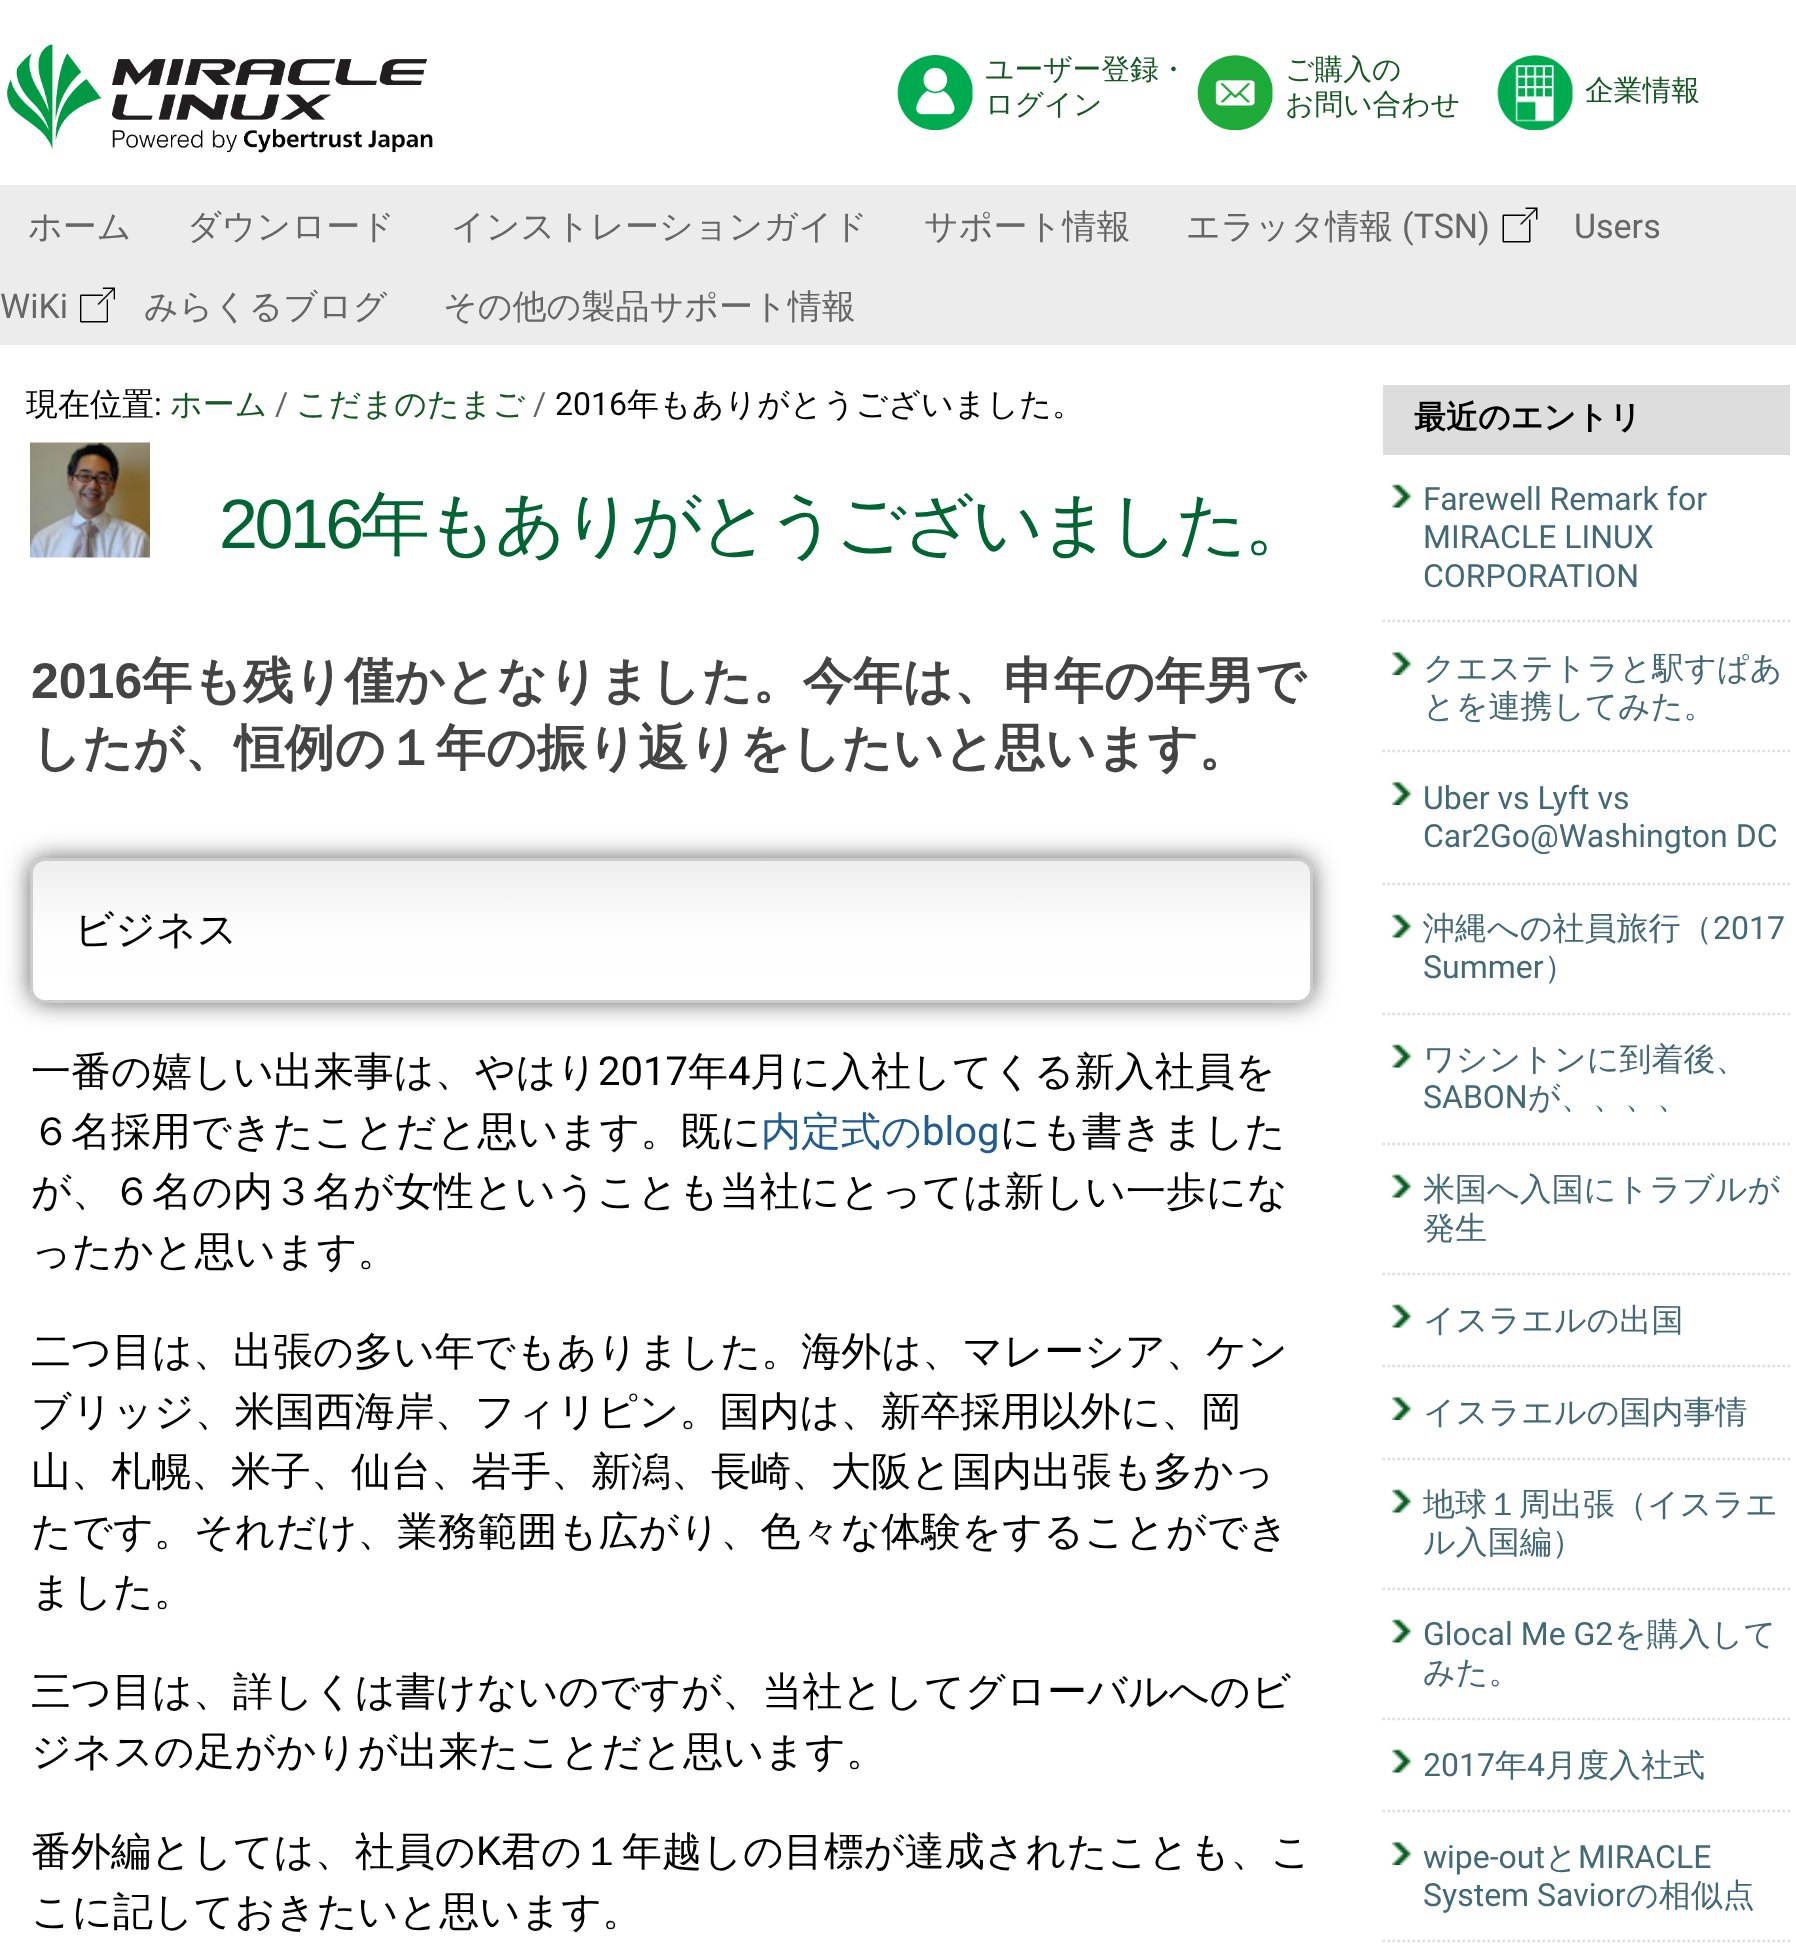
<svg xmlns="http://www.w3.org/2000/svg" width="1796" height="1955">
<defs>
<clipPath id="clip1"><rect x="30" y="858" width="1283" height="145" rx="15"/></clipPath>
<linearGradient id="g1" gradientUnits="userSpaceOnUse" x1="671" y1="860" x2="671" y2="1000"><stop offset="0" stop-color="#eee"/><stop offset="0.5" stop-color="#fdfdfd"/><stop offset="1" stop-color="#fff"/></linearGradient>
</defs>
<rect width="100%" height="100%" fill="#fff"/>
<image x="7" y="44" width="426" height="109" href="media/1.png"/>
<image x="897" y="55" width="76" height="75" href="media/2.png"/>
<text x="985" y="79" style="font-family:WenQuanYi Zen Hei;font-size:28.75px;font-weight:500;fill:#155824">ユーザー登録・</text>
<text x="985" y="114" style="font-family:WenQuanYi Zen Hei;font-size:28.75px;font-weight:500;fill:#155824">ログイン</text>
<image x="1197" y="55" width="76" height="75" href="media/3.png"/>
<text x="1285" y="79" style="font-family:WenQuanYi Zen Hei;font-size:28.75px;font-weight:500;fill:#155824">ご購入の</text>
<text x="1285" y="114" style="font-family:WenQuanYi Zen Hei;font-size:28.75px;font-weight:500;fill:#155824">お問い合わせ</text>
<image x="1497" y="55" width="76" height="75" href="media/4.png"/>
<text x="1585" y="100" style="font-family:WenQuanYi Zen Hei;font-size:28.75px;font-weight:500;fill:#155824">企業情報</text>
<rect y="185" width="1796" height="160" fill="#ececec"/>
<text x="28" y="238" style="font-family:WenQuanYi Zen Hei;font-size:34px;font-weight:500;fill:#666">ホーム</text>
<text x="187" y="238" style="font-family:WenQuanYi Zen Hei;font-size:34px;font-weight:500;fill:#666">ダウンロード</text>
<text x="451" y="238" style="font-family:WenQuanYi Zen Hei;font-size:34px;font-weight:500;fill:#666">インストレーションガイド</text>
<text x="924" y="238" style="font-family:WenQuanYi Zen Hei;font-size:34px;font-weight:500;fill:#666">サポート情報</text>
<text x="1186" y="238" style="font-family:WenQuanYi Zen Hei;font-size:34px;font-weight:500;fill:#666">エラッタ情報</text>
<text x="1402" y="238" style="font-family:Roboto;font-size:34px;fill:#666">(TSN)</text>
<image x="1502" y="207" width="36" height="36" href="media/5.png"/>
<text x="1574" y="238" style="font-family:Roboto;font-size:34px;fill:#666">Users</text>
<text x="0" y="318" style="font-family:Roboto;font-size:34px;fill:#666">WiKi</text>
<image x="80" y="287" width="35" height="36" href="media/6.png"/>
<text x="144" y="318" style="font-family:WenQuanYi Zen Hei;font-size:34px;font-weight:500;fill:#666">みらくるブログ</text>
<text x="443" y="318" style="font-family:WenQuanYi Zen Hei;font-size:34px;font-weight:500;fill:#666">その他の製品サポート情報</text>
<text x="26" y="415" style="font-family:WenQuanYi Zen Hei;font-size:32px;font-weight:500;fill:#000">現在位置</text>
<text x="154" y="415" style="font-family:Roboto;font-size:32px;fill:#000">:</text>
<text x="170" y="415" style="font-family:WenQuanYi Zen Hei;font-size:32px;font-weight:500;fill:#155824">ホーム</text>
<text x="275" y="415" style="font-family:Roboto;font-size:32px;fill:#666">/</text>
<text x="296" y="415" style="font-family:WenQuanYi Zen Hei;font-size:32px;font-weight:500;fill:#155824">こだまのたまご</text>
<text x="533" y="415" style="font-family:Roboto;font-size:32px;fill:#666">/</text>
<text x="555" y="415" style="font-family:Roboto;font-size:32px;fill:#000">2016</text>
<text x="627" y="415" style="font-family:WenQuanYi Zen Hei;font-size:32px;font-weight:500;fill:#000">年もありがとうございました。</text>
<image x="30" y="442" width="120" height="116" href="media/7.png"/>
<text x="219" y="548" style="font-family:Liberation Sans;font-size:70px;letter-spacing:-3.5px;fill:#006532">2016</text>
<text x="360" y="548" style="font-family:WenQuanYi Zen Hei;font-size:70px;font-weight:500;letter-spacing:-3.5px;fill:#006532">年もありがとうございました。</text>
<text x="31" y="698" style="font-family:Liberation Sans;font-size:50px;font-weight:bold;fill:#444">2016</text>
<text x="142" y="698" style="font-family:WenQuanYi Zen Hei;font-size:50px;font-weight:bold;fill:#444">年も残り僅かとなりました。今年は、申年の年男で</text>
<text x="31" y="765" style="font-family:WenQuanYi Zen Hei;font-size:50px;font-weight:bold;fill:#444">したが、恒例の１年の振り返りをしたいと思います。</text>
<rect x="30" y="858" width="1283" height="145" rx="15" fill="#666" filter="blur(12.5px)"/>
<g clip-path="url(#clip1)">
<rect x="30" y="860" width="1283" height="140" fill="url(#g1)"/>
</g>
<rect x="31.5" y="859.5" width="1280" height="142" rx="13.5" fill="none" stroke="#ccc" stroke-width="3"/>
<text x="74" y="943" style="font-family:WenQuanYi Zen Hei;font-size:40px;font-weight:500;fill:#000">ビジネス</text>
<text x="31" y="1085" style="font-family:WenQuanYi Zen Hei;font-size:40px;font-weight:500;fill:#000">一番の嬉しい出来事は、やはり</text>
<text x="598" y="1085" style="font-family:Roboto;font-size:40px;fill:#000">2017</text>
<text x="688" y="1085" style="font-family:WenQuanYi Zen Hei;font-size:40px;font-weight:500;fill:#000">年</text>
<text x="728" y="1085" style="font-family:Roboto;font-size:40px;fill:#000">4</text>
<text x="750" y="1085" style="font-family:WenQuanYi Zen Hei;font-size:40px;font-weight:500;fill:#000">月に入社してくる新入社員を</text>
<text x="31" y="1145" style="font-family:WenQuanYi Zen Hei;font-size:40px;font-weight:500;fill:#000">６名採用できたことだと思います。既に</text>
<text x="761" y="1145" style="font-family:WenQuanYi Zen Hei;font-size:40px;font-weight:500;fill:#205c90">内定式の</text>
<text x="922" y="1145" style="font-family:Roboto;font-size:40px;fill:#205c90">blog</text>
<text x="1000" y="1145" style="font-family:WenQuanYi Zen Hei;font-size:40px;font-weight:500;fill:#000">にも書きました</text>
<text x="31" y="1205" style="font-family:WenQuanYi Zen Hei;font-size:40px;font-weight:500;fill:#000">が、６名の内３名が女性ということも当社にとっては新しい一歩にな</text>
<text x="31" y="1265" style="font-family:WenQuanYi Zen Hei;font-size:40px;font-weight:500;fill:#000">ったかと思います。</text>
<text x="31" y="1365" style="font-family:WenQuanYi Zen Hei;font-size:40px;font-weight:500;fill:#000">二つ目は、出張の多い年でもありました。海外は、マレーシア、ケン</text>
<text x="31" y="1425" style="font-family:WenQuanYi Zen Hei;font-size:40px;font-weight:500;fill:#000">ブリッジ、米国西海岸、フィリピン。国内は、新卒採用以外に、岡</text>
<text x="31" y="1485" style="font-family:WenQuanYi Zen Hei;font-size:40px;font-weight:500;fill:#000">山、札幌、米子、仙台、岩手、新潟、長崎、大阪と国内出張も多かっ</text>
<text x="31" y="1545" style="font-family:WenQuanYi Zen Hei;font-size:40px;font-weight:500;fill:#000">たです。それだけ、業務範囲も広がり、色々な体験をすることができ</text>
<text x="31" y="1605" style="font-family:WenQuanYi Zen Hei;font-size:40px;font-weight:500;fill:#000">ました。</text>
<text x="31" y="1705" style="font-family:WenQuanYi Zen Hei;font-size:40px;font-weight:500;fill:#000">三つ目は、詳しくは書けないのですが、当社としてグローバルへのビ</text>
<text x="31" y="1765" style="font-family:WenQuanYi Zen Hei;font-size:40px;font-weight:500;fill:#000">ジネスの足がかりが出来たことだと思います。</text>
<text x="31" y="1865" style="font-family:WenQuanYi Zen Hei;font-size:40px;font-weight:500;fill:#000">番外編としては、社員の</text>
<text x="476" y="1865" style="font-family:Roboto;font-size:40px;fill:#000">K</text>
<text x="501" y="1865" style="font-family:WenQuanYi Zen Hei;font-size:40px;font-weight:500;fill:#000">君の１年越しの目標が達成されたことも、こ</text>
<text x="31" y="1925" style="font-family:WenQuanYi Zen Hei;font-size:40px;font-weight:500;fill:#000">こに記しておきたいと思います。</text>
<rect x="1383" y="385" width="407" height="70" fill="#ddd"/>
<text x="1414" y="428" style="font-family:WenQuanYi Zen Hei;font-size:32px;font-weight:bold;fill:#000">最近のエントリ</text>
<image x="1391" y="484" width="22" height="24" href="media/8.png"/>
<path d="M1382.5 621h407.5" fill="none" stroke="#ddd" stroke-width="2.5" stroke-dasharray="2.5 2.5"/>
<text x="1423" y="510" style="font-family:Roboto;font-size:32px;fill:#436976">Farewell Remark for</text>
<text x="1423" y="548" style="font-family:Roboto;font-size:32px;fill:#436976">MIRACLE LINUX</text>
<text x="1423" y="587" style="font-family:Roboto;font-size:32px;fill:#436976">CORPORATION</text>
<image x="1391" y="651" width="22" height="24" href="media/9.png"/>
<path d="M1382.5 751h407.5" fill="none" stroke="#ddd" stroke-width="2.5" stroke-dasharray="2.5 2.5"/>
<text x="1423" y="679" style="font-family:WenQuanYi Zen Hei;font-size:32px;font-weight:500;fill:#436976">クエステトラと駅すぱあ</text>
<text x="1423" y="717" style="font-family:WenQuanYi Zen Hei;font-size:32px;font-weight:500;fill:#436976">とを連携してみた。</text>
<image x="1391" y="781" width="22" height="24" href="media/9.png"/>
<path d="M1382.5 884h407.5" fill="none" stroke="#ddd" stroke-width="2.5" stroke-dasharray="2.5 2.5"/>
<text x="1423" y="809" style="font-family:Roboto;font-size:32px;fill:#436976">Uber vs Lyft vs</text>
<text x="1423" y="847" style="font-family:Roboto;font-size:32px;fill:#436976">Car2Go@Washington DC</text>
<image x="1391" y="914" width="22" height="24" href="media/8.png"/>
<path d="M1382.5 1014h407.5" fill="none" stroke="#ddd" stroke-width="2.5" stroke-dasharray="2.5 2.5"/>
<text x="1423" y="939" style="font-family:WenQuanYi Zen Hei;font-size:32px;font-weight:500;fill:#436976">沖縄への社員旅行（</text>
<text x="1713" y="939" style="font-family:Roboto;font-size:32px;fill:#436976">2017</text>
<text x="1423" y="978" style="font-family:Roboto;font-size:32px;fill:#436976">Summer</text>
<text x="1544" y="978" style="font-family:WenQuanYi Zen Hei;font-size:32px;font-weight:500;fill:#436976">）</text>
<image x="1391" y="1044" width="22" height="24" href="media/8.png"/>
<path d="M1382.5 1144h407.5" fill="none" stroke="#ddd" stroke-width="2.5" stroke-dasharray="2.5 2.5"/>
<text x="1423" y="1070" style="font-family:WenQuanYi Zen Hei;font-size:32px;font-weight:500;fill:#436976">ワシントンに到着後、</text>
<text x="1423" y="1108" style="font-family:Roboto;font-size:32px;fill:#436976">SABON</text>
<text x="1528" y="1108" style="font-family:WenQuanYi Zen Hei;font-size:32px;font-weight:500;fill:#436976">が、、、、</text>
<image x="1391" y="1174" width="22" height="24" href="media/10.png"/>
<path d="M1382.5 1274h407.5" fill="none" stroke="#ddd" stroke-width="2.5" stroke-dasharray="2.5 2.5"/>
<text x="1423" y="1200" style="font-family:WenQuanYi Zen Hei;font-size:32px;font-weight:500;fill:#436976">米国へ入国にトラブルが</text>
<text x="1423" y="1239" style="font-family:WenQuanYi Zen Hei;font-size:32px;font-weight:500;fill:#436976">発生</text>
<image x="1391" y="1304" width="22" height="24" href="media/8.png"/>
<path d="M1382.5 1366h407.5" fill="none" stroke="#ddd" stroke-width="2.5" stroke-dasharray="2.5 2.5"/>
<text x="1423" y="1331" style="font-family:WenQuanYi Zen Hei;font-size:32px;font-weight:500;fill:#436976">イスラエルの出国</text>
<image x="1391" y="1396" width="22" height="24" href="media/9.png"/>
<path d="M1382.5 1459h407.5" fill="none" stroke="#ddd" stroke-width="2.5" stroke-dasharray="2.5 2.5"/>
<text x="1423" y="1423" style="font-family:WenQuanYi Zen Hei;font-size:32px;font-weight:500;fill:#436976">イスラエルの国内事情</text>
<image x="1391" y="1489" width="22" height="24" href="media/8.png"/>
<path d="M1382.5 1589h407.5" fill="none" stroke="#ddd" stroke-width="2.5" stroke-dasharray="2.5 2.5"/>
<text x="1423" y="1515" style="font-family:WenQuanYi Zen Hei;font-size:32px;font-weight:500;fill:#436976">地球１周出張（イスラエ</text>
<text x="1423" y="1553" style="font-family:WenQuanYi Zen Hei;font-size:32px;font-weight:500;fill:#436976">ル入国編）</text>
<image x="1391" y="1619" width="22" height="24" href="media/8.png"/>
<path d="M1382.5 1719h407.5" fill="none" stroke="#ddd" stroke-width="2.5" stroke-dasharray="2.5 2.5"/>
<text x="1423" y="1645" style="font-family:Roboto;font-size:32px;fill:#436976">Glocal Me G2</text>
<text x="1614" y="1645" style="font-family:WenQuanYi Zen Hei;font-size:32px;font-weight:500;fill:#436976">を購入して</text>
<text x="1423" y="1683" style="font-family:WenQuanYi Zen Hei;font-size:32px;font-weight:500;fill:#436976">みた。</text>
<image x="1391" y="1749" width="22" height="24" href="media/8.png"/>
<path d="M1382.5 1811h407.5" fill="none" stroke="#ddd" stroke-width="2.5" stroke-dasharray="2.5 2.5"/>
<text x="1423" y="1776" style="font-family:Roboto;font-size:32px;fill:#436976">2017</text>
<text x="1495" y="1776" style="font-family:WenQuanYi Zen Hei;font-size:32px;font-weight:500;fill:#436976">年</text>
<text x="1527" y="1776" style="font-family:Roboto;font-size:32px;fill:#436976">4</text>
<text x="1545" y="1776" style="font-family:WenQuanYi Zen Hei;font-size:32px;font-weight:500;fill:#436976">月度入社式</text>
<image x="1391" y="1841" width="22" height="24" href="media/9.png"/>
<path d="M1382.5 1941h407.5" fill="none" stroke="#ddd" stroke-width="2.5" stroke-dasharray="2.5 2.5"/>
<text x="1423" y="1868" style="font-family:Roboto;font-size:32px;fill:#436976">wipe-out</text>
<text x="1545" y="1868" style="font-family:WenQuanYi Zen Hei;font-size:32px;font-weight:500;fill:#436976">と</text>
<text x="1578" y="1868" style="font-family:Roboto;font-size:32px;fill:#436976">MIRACLE</text>
<text x="1423" y="1906" style="font-family:Roboto;font-size:32px;fill:#436976">System Savior</text>
<text x="1626" y="1906" style="font-family:WenQuanYi Zen Hei;font-size:32px;font-weight:500;fill:#436976">の相似点</text>
</svg>
